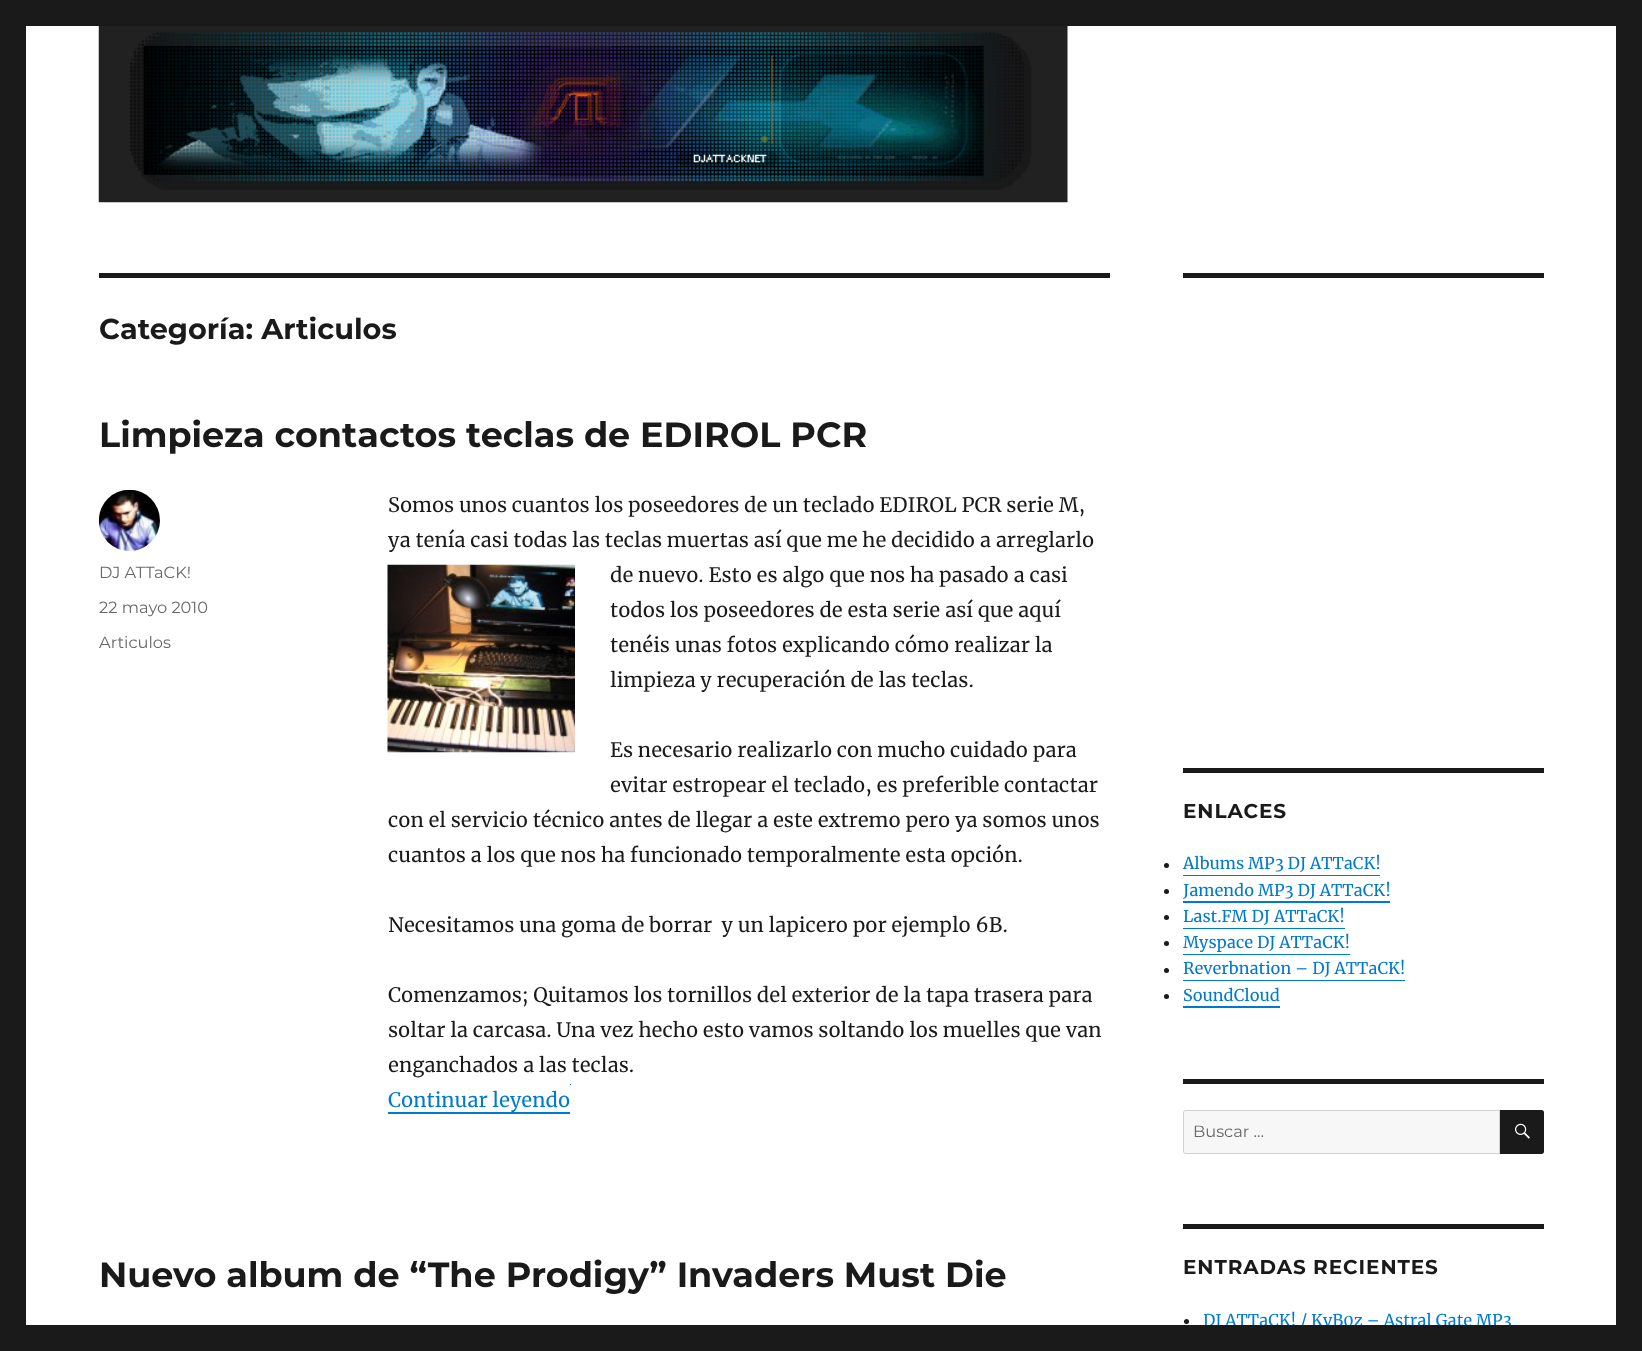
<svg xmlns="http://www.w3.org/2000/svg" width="1642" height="1351">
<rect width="100%" height="100%" fill="#1a1a1a"/>
<rect x="26" y="26" width="1590" height="1299" fill="#fff"/>
<image x="98" y="26" width="970" height="177" href="media/1.png"/>
<rect x="99" y="273" width="1011" height="5" fill="#1a1a1a"/>
<text x="99" y="339" style="font-family:Montserrat;font-size:28.75px;font-weight:100;fill:#1a1a1a">Categoría: Articulos</text>
<text x="99" y="447" style="font-family:Montserrat;font-size:35px;font-weight:100;fill:#1a1a1a">Limpieza contactos teclas de EDIROL PCR</text>
<image x="98" y="489" width="62" height="62" href="media/2.png"/>
<text x="99" y="578" style="font-family:'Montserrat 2';font-size:16.25px;font-weight:100;fill:#686868">DJ ATTaCK!</text>
<text x="99" y="613" style="font-family:'Montserrat 2';font-size:16.25px;font-weight:100;fill:#686868">22 mayo 2010</text>
<text x="99" y="648" style="font-family:'Montserrat 2';font-size:16.25px;font-weight:100;fill:#686868">Articulos</text>
<text x="388" y="512" style="font-family:Merriweather;font-size:20px;fill:#1a1a1a">Somos unos cuantos los poseedores de un teclado EDIROL PCR serie M,</text>
<text x="388" y="547" style="font-family:Merriweather;font-size:20px;fill:#1a1a1a">ya tenía casi todas las teclas muertas así que me he decidido a arreglarlo</text>
<image x="387" y="564" width="188" height="189" href="media/3.png"/>
<text x="610" y="582" style="font-family:Merriweather;font-size:20px;fill:#1a1a1a">de nuevo. Esto es algo que nos ha pasado a casi</text>
<text x="610" y="617" style="font-family:Merriweather;font-size:20px;fill:#1a1a1a">todos los poseedores de esta serie así que aquí</text>
<text x="610" y="652" style="font-family:Merriweather;font-size:20px;fill:#1a1a1a">tenéis unas fotos explicando cómo realizar la</text>
<text x="610" y="687" style="font-family:Merriweather;font-size:20px;fill:#1a1a1a">limpieza y recuperación de las teclas.</text>
<text x="610" y="757" style="font-family:Merriweather;font-size:20px;fill:#1a1a1a">Es necesario realizarlo con mucho cuidado para</text>
<text x="610" y="792" style="font-family:Merriweather;font-size:20px;fill:#1a1a1a">evitar estropear el teclado, es preferible contactar</text>
<text x="388" y="827" style="font-family:Merriweather;font-size:20px;fill:#1a1a1a">con el servicio técnico antes de llegar a este extremo pero ya somos unos</text>
<text x="388" y="862" style="font-family:Merriweather;font-size:20px;fill:#1a1a1a">cuantos a los que nos ha funcionado temporalmente esta opción.</text>
<text x="388" y="932" style="font-family:Merriweather;font-size:20px;fill:#1a1a1a" xml:space="preserve">Necesitamos una goma de borrar  y un lapicero por ejemplo 6B.</text>
<text x="388" y="1002" style="font-family:Merriweather;font-size:20px;fill:#1a1a1a">Comenzamos; Quitamos los tornillos del exterior de la tapa trasera para</text>
<text x="388" y="1037" style="font-family:Merriweather;font-size:20px;fill:#1a1a1a">soltar la carcasa. Una vez hecho esto vamos soltando los muelles que van</text>
<text x="388" y="1072" style="font-family:Merriweather;font-size:20px;fill:#1a1a1a">enganchados a las teclas.</text>
<text x="388" y="1107" style="font-family:Merriweather;font-size:20px;fill:#007acc">Continuar leyendo</text>
<rect x="388" y="1112" width="182" height="2" fill="#007acc"/>
<rect x="570" y="1084" width="1" height="1" fill="#007acc"/>
<text x="99" y="1287" style="font-family:Montserrat;font-size:35px;font-weight:100;fill:#1a1a1a">Nuevo album de “The Prodigy” Invaders Must Die</text>
<rect x="1183" y="273" width="361" height="5" fill="#1a1a1a"/>
<rect x="1183" y="768" width="361" height="5" fill="#1a1a1a"/>
<text x="1183" y="818" style="font-family:Montserrat;font-size:20px;font-weight:100;letter-spacing:0.9px;fill:#1a1a1a">ENLACES</text>
<circle cx="1166.5" cy="865.5" r="2.5" fill="#1a1a1a"/>
<text x="1183" y="869" style="font-family:Merriweather;font-size:16.25px;fill:#007acc">Albums MP3 DJ ATTaCK!</text>
<rect x="1183" y="875" width="197" height="1" fill="#007acc"/>
<circle cx="1166.5" cy="891.5" r="2.5" fill="#1a1a1a"/>
<text x="1183" y="896" style="font-family:Merriweather;font-size:16.25px;fill:#007acc">Jamendo MP3 DJ ATTaCK!</text>
<rect x="1183" y="901" width="207" height="2" fill="#007acc"/>
<circle cx="1166.5" cy="917.5" r="2.5" fill="#1a1a1a"/>
<text x="1183" y="922" style="font-family:Merriweather;font-size:16.25px;fill:#007acc">Last.FM DJ ATTaCK!</text>
<rect x="1183" y="928" width="162" height="1" fill="#007acc"/>
<circle cx="1166.5" cy="943.5" r="2.5" fill="#1a1a1a"/>
<text x="1183" y="948" style="font-family:Merriweather;font-size:16.25px;fill:#007acc">Myspace DJ ATTaCK!</text>
<rect x="1183" y="954" width="167" height="1" fill="#007acc"/>
<circle cx="1166.5" cy="970.5" r="2.5" fill="#1a1a1a"/>
<text x="1183" y="974" style="font-family:Merriweather;font-size:16.25px;fill:#007acc">Reverbnation – DJ ATTaCK!</text>
<rect x="1183" y="980" width="222" height="1" fill="#007acc"/>
<circle cx="1166.5" cy="996.5" r="2.5" fill="#1a1a1a"/>
<text x="1183" y="1001" style="font-family:Merriweather;font-size:16.25px;fill:#007acc">SoundCloud</text>
<rect x="1183" y="1006" width="97" height="2" fill="#007acc"/>
<rect x="1183" y="1079" width="361" height="5" fill="#1a1a1a"/>
<path d="M1185.5 1110.5h314v43h-314c-1 0-2-1-2-2v-39c0-1 1-2 2-2z" fill="#f7f7f7" stroke="#d1d1d1"/>
<text x="1193" y="1137" style="font-family:'Montserrat 2';font-size:16.25px;font-weight:100;fill:#686868">Buscar …</text>
<path d="M1500 1110h41.5c1.5 0 2.5 1 2.5 2.5v39c0 1.5-1 2.5-2.5 2.5h-41.5z" fill="#1a1a1a"/>
<image x="1515" y="1123" width="15" height="16" href="media/4.png"/>
<rect x="1183" y="1224" width="361" height="5" fill="#1a1a1a"/>
<text x="1183" y="1274" style="font-family:Montserrat;font-size:20px;font-weight:100;letter-spacing:0.9px;fill:#1a1a1a">ENTRADAS RECIENTES</text>
<circle cx="1186.5" cy="1321.5" r="2.5" fill="#1a1a1a"/>
<text x="1203" y="1326" style="font-family:Merriweather;font-size:16.25px;fill:#007acc">DJ ATTaCK! / KyB0z – Astral Gate MP3</text>
<rect x="1203" y="1325" width="308" height="6" fill="#1a1a1a"/>
</svg>
